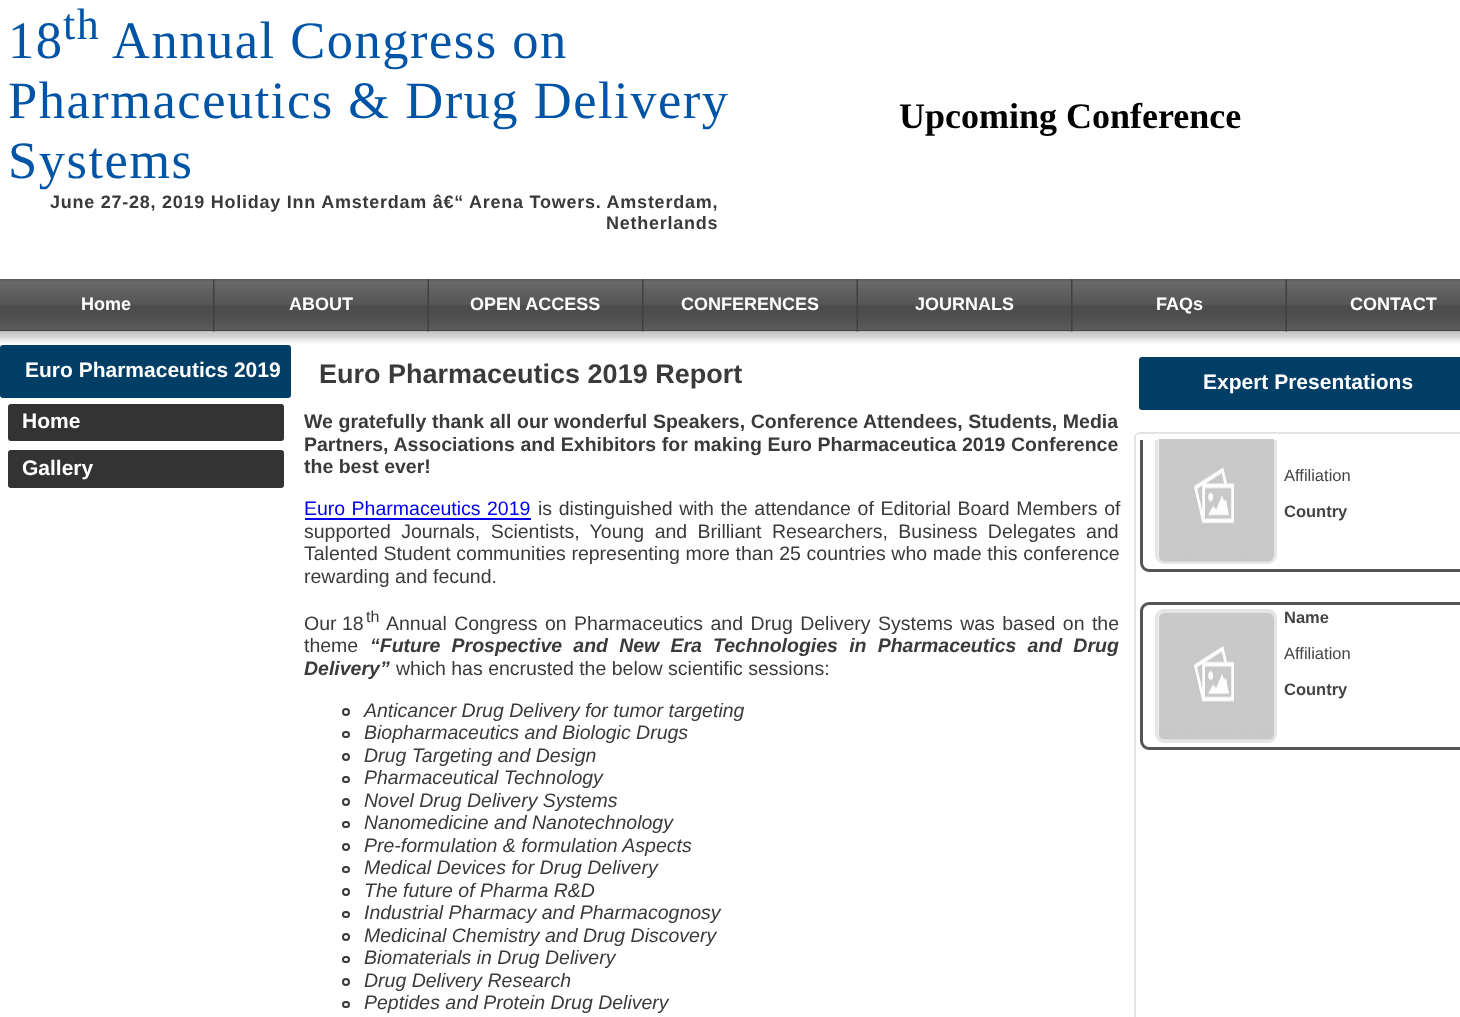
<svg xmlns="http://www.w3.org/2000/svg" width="1460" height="1017">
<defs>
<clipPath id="clip1"><rect x="1136" y="440" width="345" height="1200"/></clipPath>
</defs>
<rect width="100%" height="100%" fill="#fff"/>
<text x="8" y="58" style="font-family:Liberation Serif;font-size:52.5px;letter-spacing:1.5px;fill:#0054a6">18</text>
<text x="63" y="39" style="font-family:Liberation Serif;font-size:44px;letter-spacing:1.5px;fill:#0054a6">th</text>
<text x="112" y="58" style="font-family:Liberation Serif;font-size:52.5px;letter-spacing:1.5px;fill:#0054a6">Annual Congress on</text>
<text x="8" y="118" style="font-family:Liberation Serif;font-size:52.5px;letter-spacing:1.5px;fill:#0054a6">Pharmaceutics &amp; Drug Delivery</text>
<text x="8" y="178" style="font-family:Liberation Serif;font-size:52.5px;letter-spacing:1.5px;fill:#0054a6">Systems</text>
<text x="50" y="208" style="font-family:Liberation Sans;font-size:18px;font-weight:bold;letter-spacing:0.75px;fill:#393a3b">June 27-28, 2019 Holiday Inn Amsterdam â€“ Arena Towers. Amsterdam,</text>
<text x="606" y="229" style="font-family:Liberation Sans;font-size:18px;font-weight:bold;letter-spacing:0.75px;fill:#393a3b">Netherlands</text>
<text x="899" y="128" style="font-family:Liberation Serif;font-size:36px;font-weight:bold;fill:#000">Upcoming Conference</text>
<image x="0" y="279" width="1460" height="53" href="media/1.png"/>
<text x="81" y="310" style="font-family:Liberation Sans;font-size:18px;font-weight:bold;fill:#fff">Home</text>
<image x="0" y="331" width="1460" height="13" href="media/4.png"/>
<image x="213" y="279" width="2" height="53" href="media/2.png"/>
<text x="289" y="310" style="font-family:Liberation Sans;font-size:18px;font-weight:bold;fill:#fff">ABOUT</text>
<image x="427" y="279" width="2" height="53" href="media/3.png"/>
<text x="470" y="310" style="font-family:Liberation Sans;font-size:18px;font-weight:bold;fill:#fff">OPEN ACCESS</text>
<image x="642" y="279" width="2" height="53" href="media/2.png"/>
<text x="681" y="310" style="font-family:Liberation Sans;font-size:18px;font-weight:bold;fill:#fff">CONFERENCES</text>
<image x="856" y="279" width="2" height="53" href="media/3.png"/>
<text x="915" y="310" style="font-family:Liberation Sans;font-size:18px;font-weight:bold;fill:#fff">JOURNALS</text>
<image x="1071" y="279" width="2" height="53" href="media/2.png"/>
<text x="1156" y="310" style="font-family:Liberation Sans;font-size:18px;font-weight:bold;fill:#fff">FAQs</text>
<image x="1285" y="279" width="2" height="53" href="media/3.png"/>
<text x="1350" y="310" style="font-family:Liberation Sans;font-size:18px;font-weight:bold;fill:#fff">CONTACT</text>
<rect y="345" width="291" height="53" rx="3" fill="#003e66"/>
<text x="25" y="377" style="font-family:Liberation Sans;font-size:21px;font-weight:bold;fill:#fff">Euro Pharmaceutics 2019</text>
<rect x="8" y="404" width="276" height="37" rx="3" fill="#333"/>
<text x="22" y="428" style="font-family:Liberation Sans;font-size:21px;font-weight:bold;fill:#fff">Home</text>
<rect x="8" y="450" width="276" height="38" rx="3" fill="#333"/>
<text x="22" y="475" style="font-family:Liberation Sans;font-size:21px;font-weight:bold;fill:#fff">Gallery</text>
<text x="319" y="383" style="font-family:Liberation Sans;font-size:27px;font-weight:bold;fill:#393a3b">Euro Pharmaceutics 2019 Report</text>
<text x="304" y="428" word-spacing="0.25" style="font-family:Liberation Sans;font-size:19.5px;font-weight:bold;fill:#393a3b">We gratefully thank all our wonderful Speakers, Conference Attendees, Students, Media</text>
<text x="304" y="451" word-spacing="0.25" style="font-family:Liberation Sans;font-size:19.5px;font-weight:bold;fill:#393a3b">Partners, Associations and Exhibitors for making Euro Pharmaceutica 2019 Conference</text>
<text x="304" y="473" style="font-family:Liberation Sans;font-size:19.5px;font-weight:bold;fill:#393a3b">the best ever!</text>
<text x="304" y="515" word-spacing="1" style="font-family:Liberation Sans;font-size:19.5px;fill:#00e">Euro Pharmaceutics 2019</text>
<rect x="305" y="518" width="226" height="2" fill="#00e"/>
<text x="538" y="515" word-spacing="1.25" style="font-family:Liberation Sans;font-size:19.5px;fill:#393a3b">is distinguished with the attendance of Editorial Board Members of</text>
<text x="304" y="538" word-spacing="5" style="font-family:Liberation Sans;font-size:19.5px;fill:#393a3b">supported Journals, Scientists, Young and Brilliant Researchers, Business Delegates and</text>
<text x="304" y="560" word-spacing="0.25" style="font-family:Liberation Sans;font-size:19.5px;fill:#393a3b">Talented Student communities representing more than 25 countries who made this conference</text>
<text x="304" y="583" style="font-family:Liberation Sans;font-size:19.5px;fill:#393a3b">rewarding and fecund.</text>
<text x="304" y="630" style="font-family:Liberation Sans;font-size:19.5px;fill:#393a3b">Our 18</text>
<text x="366" y="622" style="font-family:Liberation Sans;font-size:16px;fill:#393a3b">th</text>
<text x="386" y="630" word-spacing="2" style="font-family:Liberation Sans;font-size:19.5px;fill:#393a3b">Annual Congress on Pharmaceutics and Drug Delivery Systems was based on the</text>
<text x="304" y="652" style="font-family:Liberation Sans;font-size:19.5px;fill:#393a3b">theme</text>
<text x="370" y="652" word-spacing="5.75" style="font-family:Liberation Sans;font-size:19.5px;font-weight:bold;font-style:italic;fill:#393a3b">“Future Prospective and New Era Technologies in Pharmaceutics and Drug</text>
<text x="304" y="675" style="font-family:Liberation Sans;font-size:19.5px;font-weight:bold;font-style:italic;fill:#393a3b">Delivery”</text>
<text x="396" y="675" style="font-family:Liberation Sans;font-size:19.5px;fill:#393a3b">which has encrusted the below scientific sessions:</text>
<circle cx="346" cy="712" r="3" fill="none" stroke="#393a3b" stroke-width="2"/>
<text x="364" y="717" style="font-family:Liberation Sans;font-size:19.5px;font-style:italic;fill:#393a3b">Anticancer Drug Delivery for tumor targeting</text>
<rect x="343" y="732" width="6" height="5" rx="2.5" fill="none" stroke="#393a3b" stroke-width="2"/>
<text x="364" y="739" style="font-family:Liberation Sans;font-size:19.5px;font-style:italic;fill:#393a3b">Biopharmaceutics and Biologic Drugs</text>
<circle cx="346" cy="757" r="3" fill="none" stroke="#393a3b" stroke-width="2"/>
<text x="364" y="762" style="font-family:Liberation Sans;font-size:19.5px;font-style:italic;fill:#393a3b">Drug Targeting and Design</text>
<rect x="343" y="777" width="6" height="5" rx="2.5" fill="none" stroke="#393a3b" stroke-width="2"/>
<text x="364" y="784" style="font-family:Liberation Sans;font-size:19.5px;font-style:italic;fill:#393a3b">Pharmaceutical Technology</text>
<circle cx="346" cy="802" r="3" fill="none" stroke="#393a3b" stroke-width="2"/>
<text x="364" y="807" style="font-family:Liberation Sans;font-size:19.5px;font-style:italic;fill:#393a3b">Novel Drug Delivery Systems</text>
<rect x="343" y="822" width="6" height="5" rx="2.5" fill="none" stroke="#393a3b" stroke-width="2"/>
<text x="364" y="829" style="font-family:Liberation Sans;font-size:19.5px;font-style:italic;fill:#393a3b">Nanomedicine and Nanotechnology</text>
<circle cx="346" cy="847" r="3" fill="none" stroke="#393a3b" stroke-width="2"/>
<text x="364" y="852" style="font-family:Liberation Sans;font-size:19.5px;font-style:italic;fill:#393a3b">Pre-formulation &amp; formulation Aspects</text>
<rect x="343" y="867" width="6" height="5" rx="2.5" fill="none" stroke="#393a3b" stroke-width="2"/>
<text x="364" y="874" style="font-family:Liberation Sans;font-size:19.5px;font-style:italic;fill:#393a3b">Medical Devices for Drug Delivery</text>
<circle cx="346" cy="892" r="3" fill="none" stroke="#393a3b" stroke-width="2"/>
<text x="364" y="897" style="font-family:Liberation Sans;font-size:19.5px;font-style:italic;fill:#393a3b">The future of Pharma R&amp;D</text>
<rect x="343" y="912" width="6" height="5" rx="2.5" fill="none" stroke="#393a3b" stroke-width="2"/>
<text x="364" y="919" style="font-family:Liberation Sans;font-size:19.5px;font-style:italic;fill:#393a3b">Industrial Pharmacy and Pharmacognosy</text>
<circle cx="346" cy="937" r="3" fill="none" stroke="#393a3b" stroke-width="2"/>
<text x="364" y="942" style="font-family:Liberation Sans;font-size:19.5px;font-style:italic;fill:#393a3b">Medicinal Chemistry and Drug Discovery</text>
<rect x="343" y="957" width="6" height="5" rx="2.5" fill="none" stroke="#393a3b" stroke-width="2"/>
<text x="364" y="964" style="font-family:Liberation Sans;font-size:19.5px;font-style:italic;fill:#393a3b">Biomaterials in Drug Delivery</text>
<circle cx="346" cy="982" r="3" fill="none" stroke="#393a3b" stroke-width="2"/>
<text x="364" y="987" style="font-family:Liberation Sans;font-size:19.5px;font-style:italic;fill:#393a3b">Drug Delivery Research</text>
<rect x="343" y="1002" width="6" height="5" rx="2.5" fill="none" stroke="#393a3b" stroke-width="2"/>
<text x="364" y="1009" style="font-family:Liberation Sans;font-size:19.5px;font-style:italic;fill:#393a3b">Peptides and Protein Drug Delivery</text>
<rect x="1139" y="357" width="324" height="53" rx="3" fill="#003e66"/>
<text x="1203" y="389" style="font-family:Liberation Sans;font-size:21px;font-weight:bold;fill:#fff">Expert Presentations</text>
<rect x="1135" y="433" width="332" height="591" rx="5" fill="none" stroke="#e3e3e3" stroke-width="2"/>
<g clip-path="url(#clip1)">
<rect x="1141.5" y="424.5" width="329" height="146" rx="7.5" fill="none" stroke="#555" stroke-width="3"/>
<rect x="1156.5" y="432.5" width="119" height="130" rx="7.5" fill="none" stroke="#e5e5e5" stroke-width="3"/>
</g>
<image x="1158" y="439" width="116" height="123" href="media/5.png"/>
<text x="1284" y="481" style="font-family:Liberation Sans;font-size:16.5px;fill:#444">Affiliation</text>
<text x="1284" y="517" style="font-family:Liberation Sans;font-size:16.5px;font-weight:bold;fill:#444">Country</text>
<rect x="1141.5" y="603.5" width="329" height="145" rx="7.5" fill="none" stroke="#555" stroke-width="3"/>
<rect x="1156.5" y="610.5" width="119" height="131" rx="7.5" fill="none" stroke="#e5e5e5" stroke-width="3"/>
<image x="1158" y="612" width="116" height="128" href="media/6.png"/>
<text x="1284" y="623" style="font-family:Liberation Sans;font-size:16.5px;font-weight:bold;fill:#444">Name</text>
<text x="1284" y="659" style="font-family:Liberation Sans;font-size:16.5px;fill:#444">Affiliation</text>
<text x="1284" y="695" style="font-family:Liberation Sans;font-size:16.5px;font-weight:bold;fill:#444">Country</text>
</svg>
